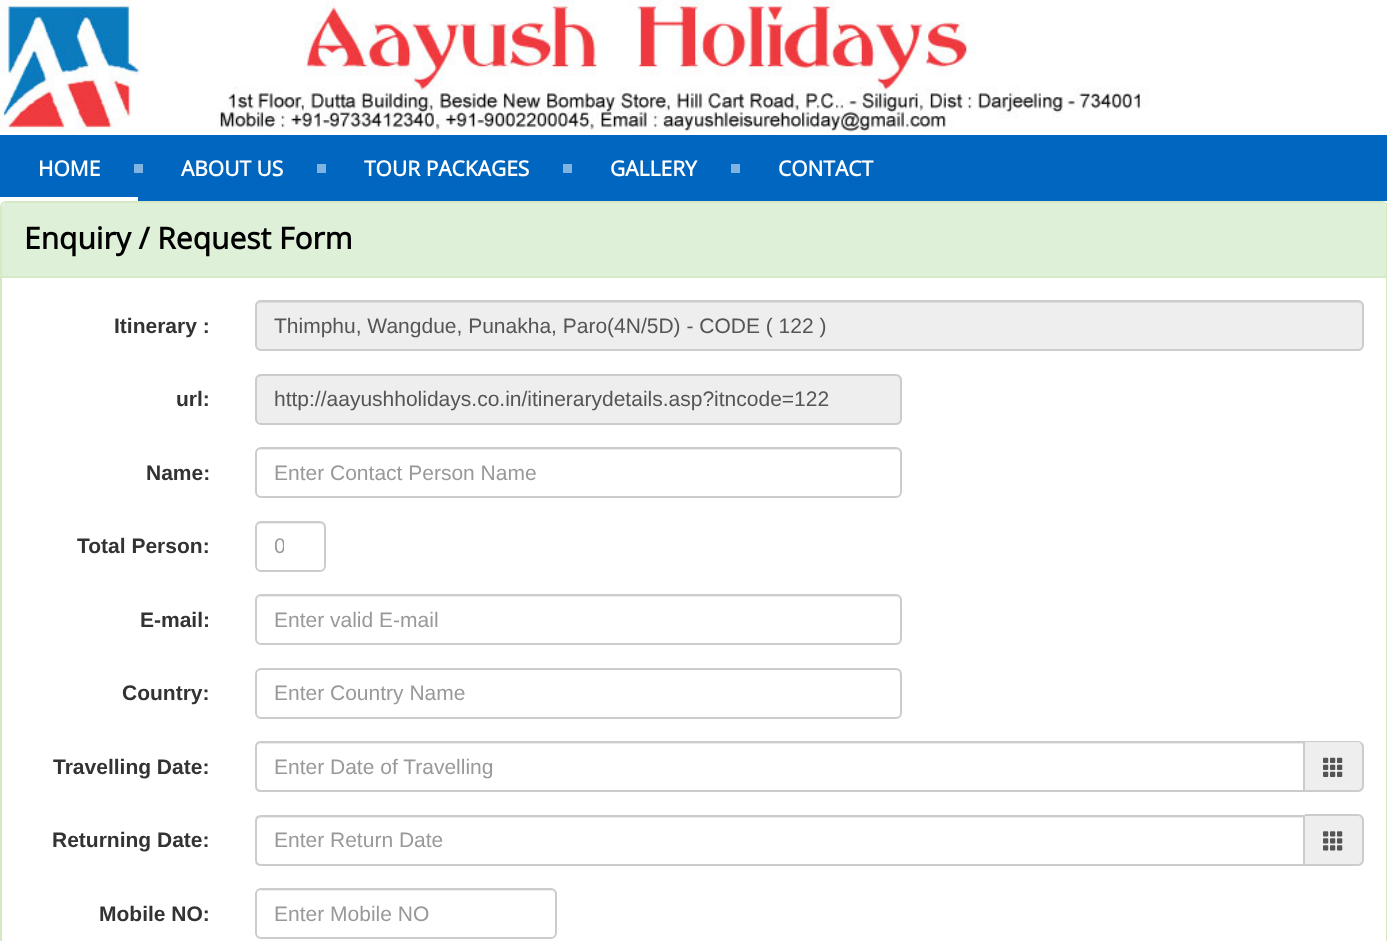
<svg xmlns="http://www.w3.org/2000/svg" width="1387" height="941">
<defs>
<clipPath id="clip1"><rect x="275" y="534" width="9" height="24"/></clipPath>
</defs>
<rect width="100%" height="100%" fill="#fff"/>
<image x="0" y="0" width="1149" height="134" href="media/1.png"/>
<rect y="135" width="1387" height="66" fill="#0066c0"/>
<text x="38" y="176" style="font-family:Open Sans;font-size:21px;font-weight:bold;fill:#fff">HOME</text>
<rect x="134" y="164" width="9" height="9" fill="#80b3e0"/>
<rect y="197" width="138" height="4" fill="#fff"/>
<text x="181" y="176" style="font-family:Open Sans;font-size:21px;font-weight:bold;fill:#fff">ABOUT US</text>
<rect x="317" y="164" width="9" height="9" fill="#80b3e0"/>
<text x="364" y="176" style="font-family:Open Sans;font-size:21px;font-weight:bold;fill:#fff">TOUR PACKAGES</text>
<rect x="563" y="164" width="9" height="9" fill="#80b3e0"/>
<text x="610" y="176" style="font-family:Open Sans;font-size:21px;font-weight:bold;fill:#fff">GALLERY</text>
<rect x="731" y="164" width="9" height="9" fill="#80b3e0"/>
<text x="778" y="176" style="font-family:Open Sans;font-size:21px;font-weight:bold;fill:#fff">CONTACT</text>
<rect x="1" y="202" width="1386" height="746" rx="5" fill="none" stroke="#d6e9c6" stroke-width="2"/>
<path d="M7 203h1374c3 0 5 2 5 5v70h-1384v-70c0-3 2-5 5-5z" fill="#dff0d8"/>
<rect x="2" y="276" width="1384" height="2" fill="#d6e9c6"/>
<text x="24" y="249" style="font-family:Open Sans;font-size:30px;font-weight:bold;fill:#000">Enquiry / Request Form</text>
<text x="114" y="333" style="font-family:Liberation Sans;font-size:21px;font-weight:bold;fill:#333">Itinerary :</text>
<rect x="255" y="300" width="1109" height="51" rx="6" fill="#eee"/>
<path d="M261 303h1097c2 0 4 2 4 5v-1c0-3-2-5-5-5h-1095c-2 0-3 1-4 2z" fill="#dcdcdc"/>
<rect x="256" y="301" width="1107" height="49" rx="5" fill="none" stroke="#ccc" stroke-width="2"/>
<text x="274" y="333" style="font-family:Liberation Sans;font-size:21px;fill:#555">Thimphu, Wangdue, Punakha, Paro(4N/5D) - CODE ( 122 )</text>
<text x="176" y="406" style="font-family:Liberation Sans;font-size:21px;font-weight:bold;fill:#333">url:</text>
<rect x="255" y="374" width="647" height="51" rx="6" fill="#eee"/>
<path d="M261 376h635c2 0 4 3 4 5v-1c0-3-2-5-5-5h-633c-2 0-4 1-5 3c1-1 3-2 4-2z" fill="#dcdcdc"/>
<rect x="256" y="375" width="645" height="49" rx="5" fill="none" stroke="#ccc" stroke-width="2"/>
<text x="274" y="406" style="font-family:Liberation Sans;font-size:21px;fill:#555">http://aayushholidays.co.in/itinerarydetails.asp?itncode=122</text>
<text x="146" y="480" style="font-family:Liberation Sans;font-size:21px;font-weight:bold;fill:#333">Name:</text>
<path d="M261 450h635c2 0 4 2 4 4c0-3-2-5-5-5h-633c-2 0-3 1-4 2z" fill="#ececec"/>
<rect x="256" y="448" width="645" height="49" rx="5" fill="none" stroke="#ccc" stroke-width="2"/>
<text x="274" y="480" style="font-family:Liberation Sans;font-size:21px;fill:#999">Enter Contact Person Name</text>
<text x="77" y="553" style="font-family:Liberation Sans;font-size:21px;font-weight:bold;fill:#333">Total Person:</text>
<path d="M261 524h59c2 0 4 2 4 4v-1c0-3-2-5-5-5h-57c-2 0-4 2-5 4c1-1 3-2 4-2z" fill="#ececec"/>
<rect x="256" y="522" width="69" height="49" rx="5" fill="none" stroke="#ccc" stroke-width="2"/>
<g clip-path="url(#clip1)">
<text x="274" y="553" style="font-family:Liberation Sans;font-size:21px;fill:#999">0</text>
</g>
<text x="140" y="627" style="font-family:Liberation Sans;font-size:21px;font-weight:bold;fill:#333">E-mail:</text>
<path d="M261 597h635c2 0 4 2 4 5v-1c0-3-2-5-5-5h-633c-2 0-3 1-4 2z" fill="#ececec"/>
<rect x="256" y="595" width="645" height="49" rx="5" fill="none" stroke="#ccc" stroke-width="2"/>
<text x="274" y="627" style="font-family:Liberation Sans;font-size:21px;fill:#999">Enter valid E-mail</text>
<text x="122" y="700" style="font-family:Liberation Sans;font-size:21px;font-weight:bold;fill:#333">Country:</text>
<path d="M261 670h635c2 0 4 3 4 5v-1c0-3-2-5-5-5h-633c-2 0-4 1-5 3c1-1 3-2 4-2z" fill="#ececec"/>
<rect x="256" y="669" width="645" height="49" rx="5" fill="none" stroke="#ccc" stroke-width="2"/>
<text x="274" y="700" style="font-family:Liberation Sans;font-size:21px;fill:#999">Enter Country Name</text>
<text x="53" y="774" style="font-family:Liberation Sans;font-size:21px;font-weight:bold;fill:#333">Travelling Date:</text>
<path d="M261 744h1043v-1h-1042c-2 0-3 1-4 2z" fill="#ececec"/>
<path d="M261 742h1043v49h-1043c-3 0-5-2-5-5v-39c0-3 2-5 5-5z" fill="none" stroke="#ccc" stroke-width="2"/>
<text x="274" y="774" style="font-family:Liberation Sans;font-size:21px;fill:#999">Enter Date of Travelling</text>
<path d="M1305 741h53c3.5 0 6 2.5 6 6v39c0 3.5-2.5 6-6 6h-53z" fill="#eee"/>
<path d="M1305 741h53c3 0 6 3 6 6v39c0 3-3 6-6 6h-53zm0 1h53c2 0 4 3 4 5v39c0 2-2 4-4 4h-53z" fill="#ccc" fill-rule="evenodd"/>
<image x="1323" y="757" width="20" height="20" href="media/2.png"/>
<text x="52" y="847" style="font-family:Liberation Sans;font-size:21px;font-weight:bold;fill:#333">Returning Date:</text>
<path d="M261 818h1043v-2h-1042c-2 0-4 2-5 4c1-1 3-2 4-2z" fill="#ececec"/>
<path d="M261 816h1043v49h-1043c-3 0-5-2-5-5v-39c0-3 2-5 5-5z" fill="none" stroke="#ccc" stroke-width="2"/>
<text x="274" y="847" style="font-family:Liberation Sans;font-size:21px;fill:#999">Enter Return Date</text>
<path d="M1305 815h53c3.5 0 6 2.5 6 6v39c0 3.5-2.5 6-6 6h-53z" fill="#eee"/>
<path d="M1305 814h53c3 0 6 3 6 6v40c0 3-3 6-6 6h-53zm0 2h53c2 0 4 2 4 4v40c0 2-2 4-4 4h-53z" fill="#ccc" fill-rule="evenodd"/>
<image x="1323" y="831" width="20" height="20" href="media/3.png"/>
<text x="99" y="921" style="font-family:Liberation Sans;font-size:21px;font-weight:bold;fill:#333">Mobile NO:</text>
<path d="M261 891h289c3 0 5 2 5 5c0-3-2-6-5-6h-288l-2 1l-2 1z" fill="#ececec"/>
<rect x="256" y="889" width="300" height="49" rx="5" fill="none" stroke="#ccc" stroke-width="2"/>
<text x="274" y="921" style="font-family:Liberation Sans;font-size:21px;fill:#999">Enter Mobile NO</text>
</svg>
